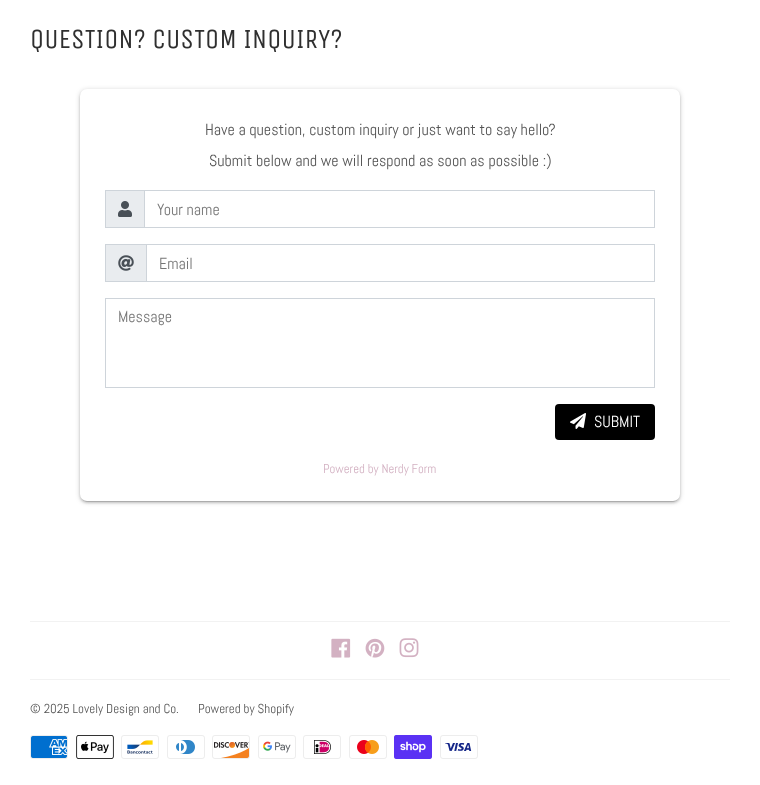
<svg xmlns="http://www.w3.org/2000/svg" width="760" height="785">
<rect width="100%" height="100%" fill="#fff"/>
<text x="30" y="48" style="font-family:Unica One;font-size:27.75px;fill:#2f2f2f">QUESTION? CUSTOM INQUIRY?</text>
<rect x="80" y="90" width="600" height="412" rx="7" fill="#00000033" filter="blur(2.5px)"/>
<rect x="82" y="94" width="596" height="408" rx="5" fill="#0000001f" filter="blur(0.5px)"/>
<rect x="80" y="91" width="600" height="412" rx="7" fill="#00000024" filter="blur(1px)"/>
<rect x="80" y="89" width="600" height="412" rx="7" fill="#fff"/>
<text x="205" y="135" style="font-family:Abel;font-size:16px;fill:#545454">Have a question, custom inquiry or just want to say hello?</text>
<text x="209" y="166" style="font-family:Abel;font-size:16px;fill:#545454">Submit below and we will respond as soon as possible :)</text>
<rect x="105.5" y="190.5" width="39" height="37" fill="#e9ecef" stroke="#ced4da"/>
<image x="118" y="201" width="14" height="16" href="media/1.png"/>
<rect x="144.5" y="190.5" width="510" height="37" fill="none" stroke="#ced4da"/>
<text x="157" y="215" style="font-family:Abel;font-size:16px;fill:#757575">Your name</text>
<rect x="105.5" y="244.5" width="41" height="37" fill="#e9ecef" stroke="#ced4da"/>
<image x="118" y="255" width="16" height="16" href="media/2.png"/>
<rect x="146.5" y="244.5" width="508" height="37" fill="none" stroke="#ced4da"/>
<text x="159" y="269" style="font-family:Abel;font-size:16px;fill:#757575">Email</text>
<rect x="105.5" y="298.5" width="549" height="89" fill="none" stroke="#ced4da"/>
<text x="118" y="322" style="font-family:Abel;font-size:16px;fill:#757575">Message</text>
<rect x="555" y="404" width="100" height="36" rx="4" fill="#000"/>
<image x="570" y="413" width="16" height="16" href="media/3.png"/>
<text x="594" y="427" style="font-family:Abel;font-size:16px;fill:#fff">SUBMIT</text>
<text x="323" y="473" style="font-family:Abel;font-size:12.75px;fill:#d3b1c2">Powered by Nerdy Form</text>
<rect x="30" y="621" width="700" height="1" fill="#f2f2f2"/>
<image x="331" y="638" width="20" height="20" href="media/4.png"/>
<image x="365" y="638" width="20" height="20" href="media/5.png"/>
<image x="399" y="638" width="20" height="20" href="media/6.png"/>
<rect x="30" y="679" width="700" height="1" fill="#f2f2f2"/>
<text x="30" y="713" style="font-family:Abel;font-size:13px;fill:#545454">© 2025 Lovely Design and Co.</text>
<text x="198" y="713" style="font-family:Abel;font-size:13px;fill:#545454">Powered by Shopify</text>
<image x="30" y="735" width="38" height="24" href="media/7.png"/>
<image x="76" y="735" width="38" height="24" href="media/8.png"/>
<image x="121" y="735" width="38" height="24" href="media/9.png"/>
<image x="167" y="735" width="38" height="24" href="media/10.png"/>
<image x="212" y="735" width="38" height="24" href="media/11.png"/>
<image x="258" y="735" width="38" height="24" href="media/12.png"/>
<image x="303" y="735" width="38" height="24" href="media/13.png"/>
<image x="349" y="735" width="38" height="24" href="media/14.png"/>
<image x="394" y="735" width="38" height="24" href="media/15.png"/>
<image x="440" y="735" width="38" height="24" href="media/16.png"/>
</svg>
